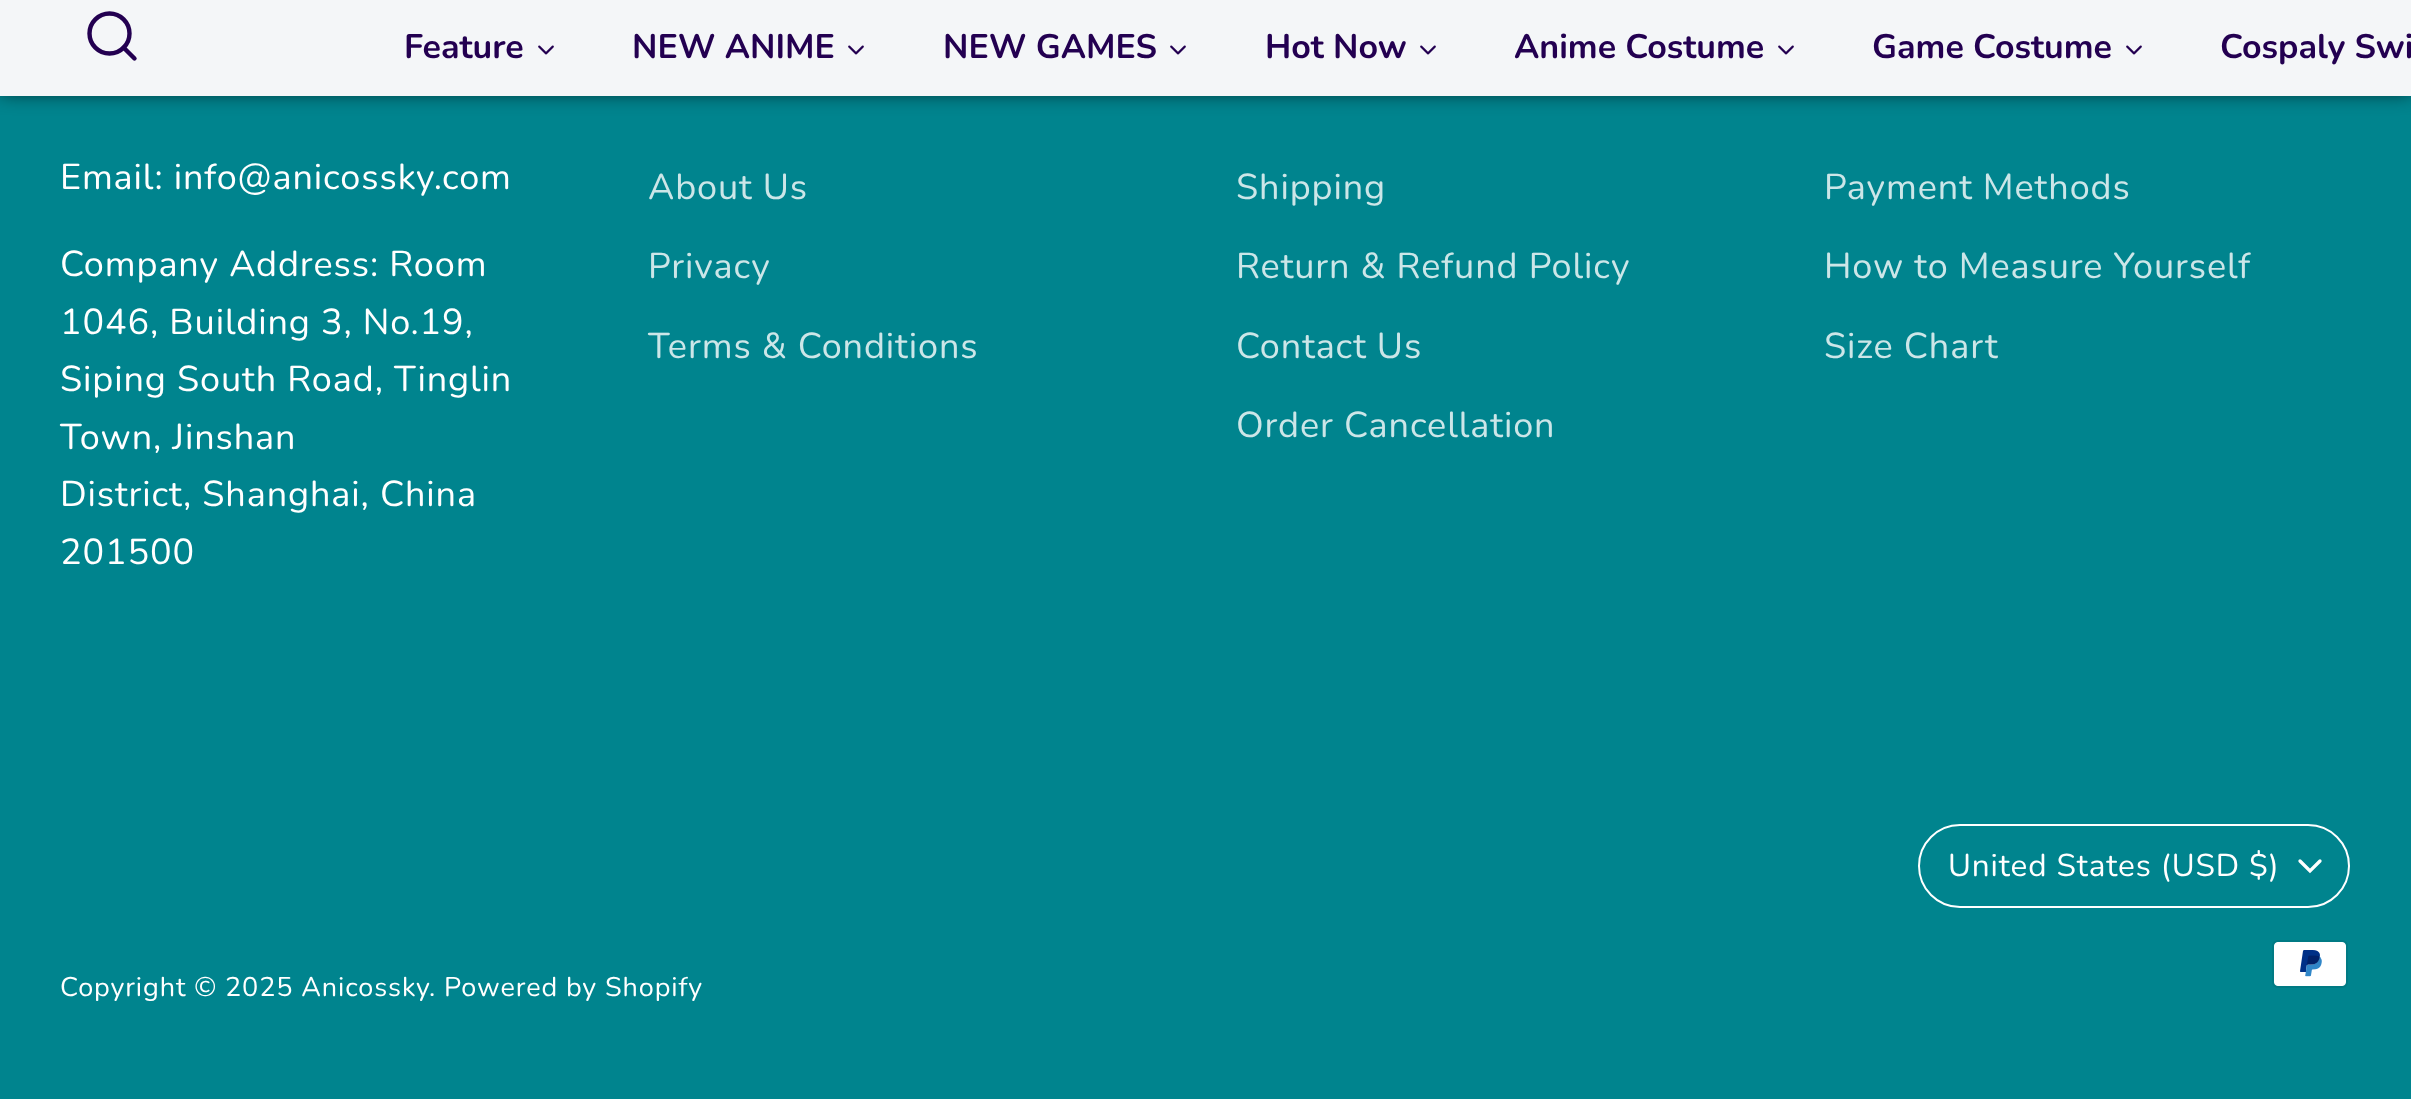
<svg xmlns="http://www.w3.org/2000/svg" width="2411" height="1099">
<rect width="100%" height="100%" fill="#00848e"/>
<rect y="-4" width="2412" height="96" fill="#000000bf" filter="blur(10px)"/>
<rect width="2411" height="96" fill="#f4f6f8"/>
<circle cx="109.5" cy="33.5" r="20" fill="none" stroke="#230051" stroke-width="4.4"/>
<path d="M134.5 58.5l-11-11" fill="none" stroke="#230051" stroke-width="4.4" stroke-linecap="round" stroke-linejoin="round"/>
<text x="404" y="58" style="font-family:Nunito;font-size:34px;font-weight:bold;fill:#230051">Feature</text>
<image x="538" y="45" width="16" height="10" href="media/1.png"/>
<text x="632" y="58" style="font-family:Nunito;font-size:34px;font-weight:bold;fill:#230051">NEW ANIME</text>
<image x="848" y="45" width="16" height="10" href="media/1.png"/>
<text x="943" y="58" style="font-family:Nunito;font-size:34px;font-weight:bold;fill:#230051">NEW GAMES</text>
<image x="1170" y="45" width="16" height="10" href="media/1.png"/>
<text x="1265" y="58" style="font-family:Nunito;font-size:34px;font-weight:bold;fill:#230051">Hot Now</text>
<image x="1420" y="45" width="16" height="10" href="media/1.png"/>
<text x="1514" y="58" style="font-family:Nunito;font-size:34px;font-weight:bold;fill:#230051">Anime Costume</text>
<image x="1778" y="45" width="16" height="10" href="media/1.png"/>
<text x="1872" y="58" style="font-family:Nunito;font-size:34px;font-weight:bold;fill:#230051">Game Costume</text>
<image x="2126" y="45" width="16" height="10" href="media/1.png"/>
<text x="2220" y="58" style="font-family:Nunito;font-size:34px;font-weight:bold;fill:#230051">Cospaly Swi</text>
<text x="60" y="189" style="font-family:Nunito;font-size:36px;letter-spacing:0.9px;fill:#fff">Email: info@anicossky.com</text>
<text x="60" y="276" style="font-family:Nunito;font-size:36px;letter-spacing:0.9px;fill:#fff">Company Address: Room</text>
<text x="60" y="334" style="font-family:Nunito;font-size:36px;letter-spacing:0.9px;fill:#fff">1046, Building 3, No.19,</text>
<text x="60" y="391" style="font-family:Nunito;font-size:36px;letter-spacing:0.9px;fill:#fff">Siping South Road, Tinglin</text>
<text x="60" y="449" style="font-family:Nunito;font-size:36px;letter-spacing:0.9px;fill:#fff">Town, Jinshan</text>
<text x="60" y="506" style="font-family:Nunito;font-size:36px;letter-spacing:0.9px;fill:#fff">District, Shanghai, China</text>
<text x="60" y="564" style="font-family:Nunito;font-size:36px;letter-spacing:0.9px;fill:#fff">201500</text>
<text x="648" y="199" style="font-family:Nunito;font-size:36px;letter-spacing:0.9px;fill:#cce6e8">About Us</text>
<text x="648" y="278" style="font-family:Nunito;font-size:36px;letter-spacing:0.9px;fill:#cce6e8">Privacy</text>
<text x="648" y="358" style="font-family:Nunito;font-size:36px;letter-spacing:0.9px;fill:#cce6e8">Terms &amp; Conditions</text>
<text x="1236" y="199" style="font-family:Nunito;font-size:36px;letter-spacing:0.9px;fill:#cce6e8">Shipping</text>
<text x="1236" y="278" style="font-family:Nunito;font-size:36px;letter-spacing:0.9px;fill:#cce6e8">Return &amp; Refund Policy</text>
<text x="1236" y="358" style="font-family:Nunito;font-size:36px;letter-spacing:0.9px;fill:#cce6e8">Contact Us</text>
<text x="1236" y="437" style="font-family:Nunito;font-size:36px;letter-spacing:0.9px;fill:#cce6e8">Order Cancellation</text>
<text x="1824" y="199" style="font-family:Nunito;font-size:36px;letter-spacing:0.9px;fill:#cce6e8">Payment Methods</text>
<text x="1824" y="278" style="font-family:Nunito;font-size:36px;letter-spacing:0.9px;fill:#cce6e8">How to Measure Yourself</text>
<text x="1824" y="358" style="font-family:Nunito;font-size:36px;letter-spacing:0.9px;fill:#cce6e8">Size Chart</text>
<rect x="1919" y="825" width="430" height="82" rx="41" fill="none" stroke="#fff" stroke-width="2"/>
<text x="1948" y="876" style="font-family:Nunito;font-size:31.5px;letter-spacing:0.9px;fill:#fff">United States (USD $)</text>
<path d="M2300 861l10 10l10-10" fill="none" stroke="#fff" stroke-width="3.3" stroke-linecap="round"/>
<image x="2272" y="940" width="76" height="48" href="media/2.png"/>
<text x="60" y="996" style="font-family:Nunito;font-size:27px;letter-spacing:0.9px;fill:#fff">Copyright © 2025 Anicossky</text>
<text x="429" y="996" style="font-family:Nunito;font-size:27px;letter-spacing:0.9px;fill:#fff">. Powered by Shopify</text>
</svg>
